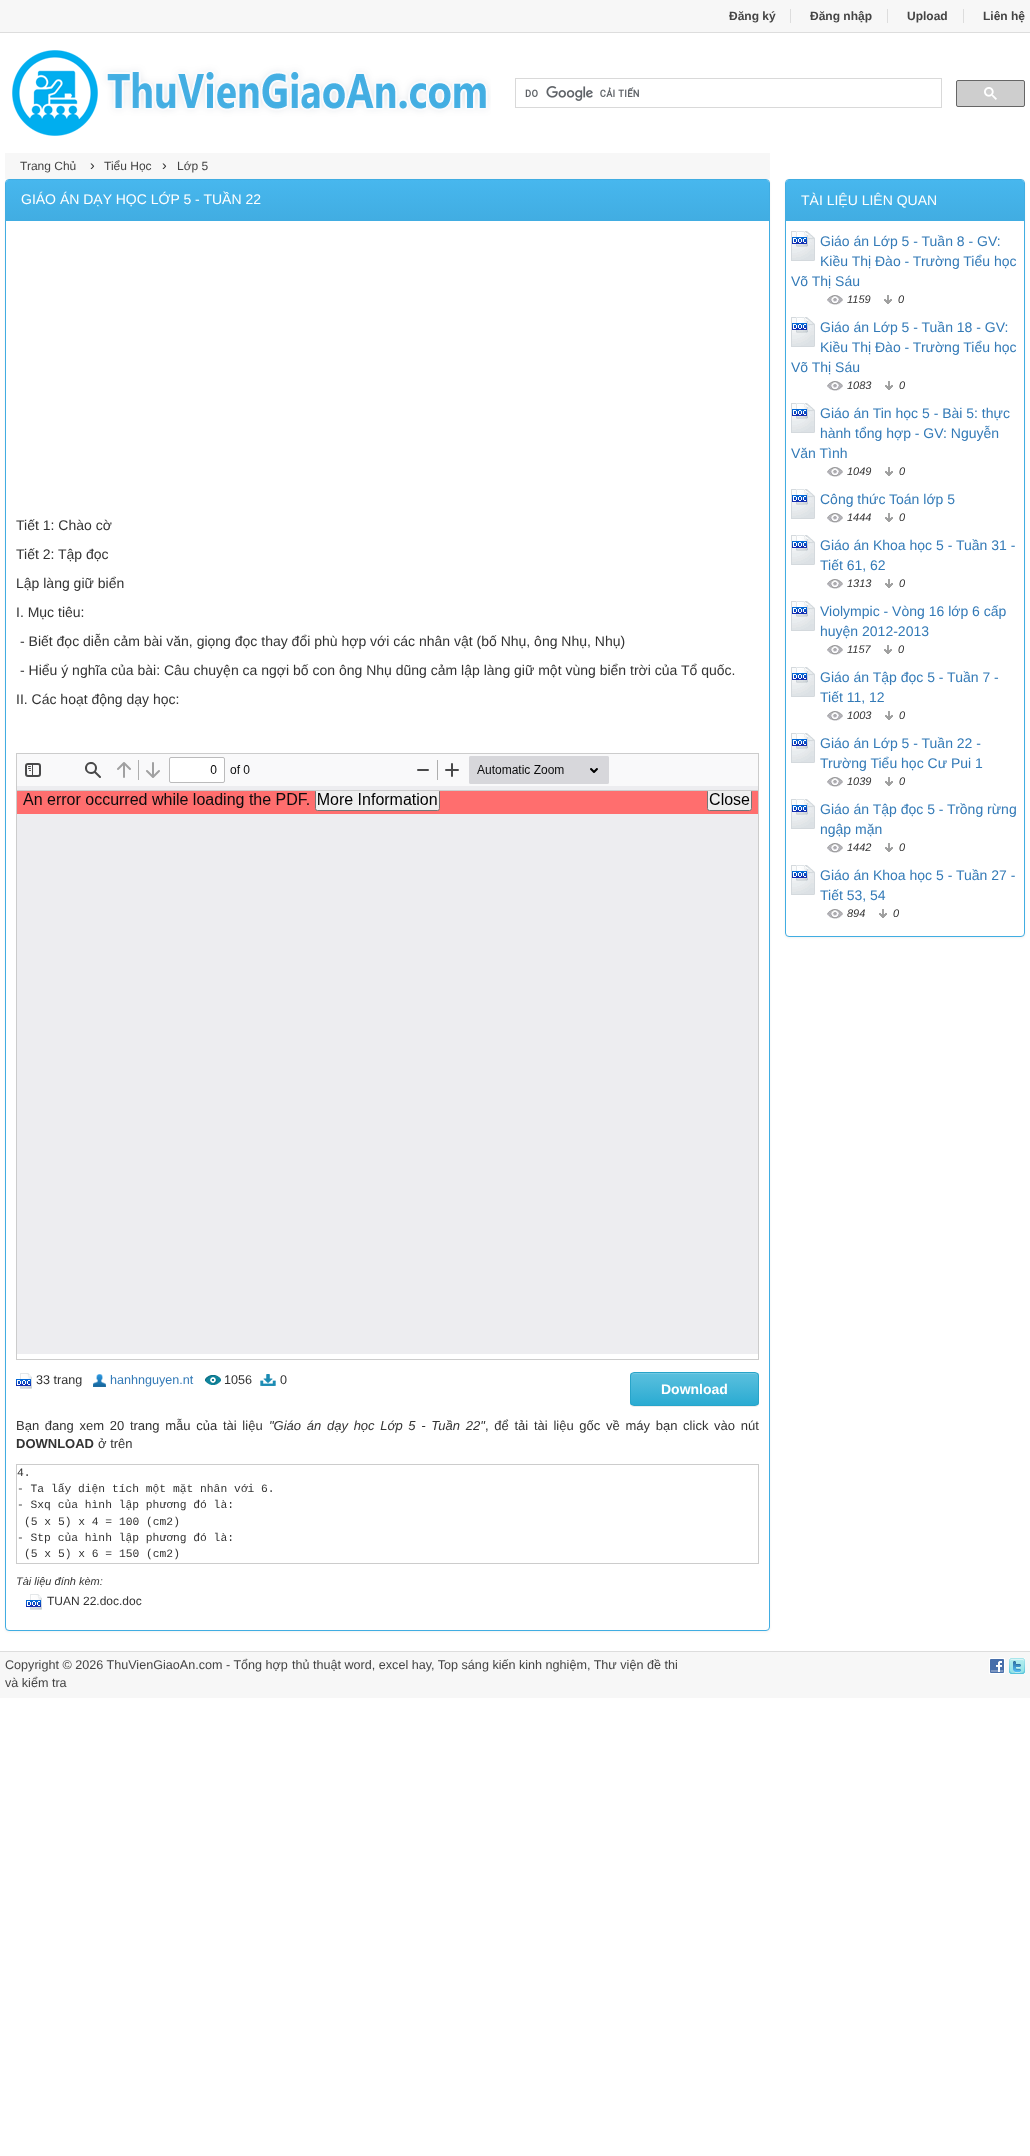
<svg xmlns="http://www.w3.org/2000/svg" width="1030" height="2156">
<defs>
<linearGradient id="g1" gradientUnits="userSpaceOnUse" x1="388" y1="180" x2="388" y2="220"><stop offset="0" stop-color="#47b7ee"/><stop offset="1" stop-color="#41ade2"/></linearGradient>
<clipPath id="clip1"><rect x="630" y="1372" width="129" height="34" rx="4"/></clipPath>
<linearGradient id="g2" gradientUnits="userSpaceOnUse" x1="695" y1="1373" x2="695" y2="1405"><stop offset="0" stop-color="#5bc0de"/><stop offset="1" stop-color="#2aabd2"/></linearGradient>
<linearGradient id="g3" gradientUnits="userSpaceOnUse" x1="905" y1="180" x2="905" y2="220"><stop offset="0" stop-color="#47b7ee"/><stop offset="1" stop-color="#41ade2"/></linearGradient>
</defs>
<rect width="100%" height="100%" fill="#fff"/>
<rect width="1030" height="32" fill="#f7f7f7"/>
<rect y="32" width="1030" height="1" fill="#ddd"/>
<text x="729" y="20" style="font-family:Liberation Sans;font-size:12px;font-weight:bold;fill:#444">Đăng ký</text>
<rect x="790" y="9" width="1" height="14" fill="#ddd"/>
<text x="810" y="20" style="font-family:Liberation Sans;font-size:12px;font-weight:bold;fill:#444">Đăng nhập</text>
<rect x="887" y="9" width="1" height="14" fill="#ddd"/>
<text x="907" y="20" style="font-family:Liberation Sans;font-size:12px;font-weight:bold;fill:#444">Upload</text>
<rect x="963" y="9" width="1" height="14" fill="#ddd"/>
<text x="983" y="20" style="font-family:Liberation Sans;font-size:12px;font-weight:bold;fill:#444">Liên hệ</text>
<image x="12" y="50" width="479" height="86" href="media/1.png"/>
<rect x="515.5" y="78.5" width="426" height="29" fill="none" stroke="#d9d9d9"/>
<image x="525" y="86" width="114" height="15" href="media/2.png"/>
<rect x="956.5" y="80.5" width="68" height="26" rx="1.5" fill="#cecece" stroke="#666"/>
<image x="984" y="87" width="13" height="13" href="media/3.png"/>
<rect x="5" y="153" width="765" height="26" fill="#f7f7f7"/>
<text x="20" y="170" style="font-family:Liberation Sans;font-size:12px;fill:#444">Trang Chủ</text>
<text x="90" y="170" style="font-family:Liberation Sans;font-size:14px;fill:#333">›</text>
<text x="104" y="170" style="font-family:Liberation Sans;font-size:12px;fill:#444">Tiểu Học</text>
<text x="162" y="170" style="font-family:Liberation Sans;font-size:14px;fill:#333">›</text>
<text x="177" y="170" style="font-family:Liberation Sans;font-size:12px;fill:#444">Lớp 5</text>
<rect x="5" y="180" width="765" height="1452" rx="4" fill="#0000000d" filter="blur(1px)"/>
<rect x="5.5" y="179.5" width="764" height="1451" rx="3.5" fill="#fff" stroke="#41ade2"/>
<path d="M9 180h757c1.5 0 3 1.5 3 3v38h-763v-38c0-1.5 1.5-3 3-3z" fill="#41ade2"/>
<path d="M9 180h757c1.5 0 3 1.5 3 3v37h-763v-37c0-1.5 1.5-3 3-3z" fill="url(#g1)"/>
<text x="21" y="204" style="font-family:Liberation Sans;font-size:14px;fill:#fff">GIÁO ÁN DẠY HỌC LỚP 5 - TUẦN 22</text>
<text x="16" y="530" style="font-family:Liberation Sans;font-size:14px;fill:#333">Tiết 1: Chào cờ</text>
<text x="16" y="559" style="font-family:Liberation Sans;font-size:14px;fill:#333">Tiết 2: Tập đọc</text>
<text x="16" y="588" style="font-family:Liberation Sans;font-size:14px;fill:#333">Lập làng giữ biển</text>
<text x="16" y="617" style="font-family:Liberation Sans;font-size:14px;fill:#333">I. Mục tiêu:</text>
<text x="20" y="646" style="font-family:Liberation Sans;font-size:14px;fill:#333">- Biết đọc diễn cảm bài văn, giọng đọc thay đổi phù hợp với các nhân vật (bố Nhụ, ông Nhụ, Nhụ)</text>
<text x="20" y="675" style="font-family:Liberation Sans;font-size:14px;fill:#333">- Hiểu ý nghĩa của bài: Câu chuyện ca ngợi bố con ông Nhụ dũng cảm lập làng giữ một vùng biển trời của Tổ quốc.</text>
<text x="16" y="704" style="font-family:Liberation Sans;font-size:14px;fill:#333">II. Các hoạt động dạy học:</text>
<rect x="16.5" y="753.5" width="742" height="606" fill="none" stroke="#ccc"/>
<image x="17" y="754" width="741" height="600" href="media/4.png"/>
<image x="16" y="1373" width="16" height="16" href="media/5.png"/>
<text x="36" y="1384" style="font-family:Liberation Sans;font-size:12.6px;fill:#333">33 trang</text>
<image x="93" y="1374" width="13" height="13" href="media/6.png"/>
<text x="110" y="1384" style="font-family:Liberation Sans;font-size:12.6px;fill:#337ab7">hanhnguyen.nt</text>
<image x="205" y="1375" width="16" height="10" href="media/7.png"/>
<text x="224" y="1384" style="font-family:Liberation Sans;font-size:12.6px;fill:#333">1056</text>
<image x="260" y="1374" width="16" height="12" href="media/8.png"/>
<text x="280" y="1384" style="font-family:Liberation Sans;font-size:12.6px;fill:#333">0</text>
<rect x="630" y="1373" width="129" height="34" rx="4" fill="#00000012" filter="blur(0.5px)"/>
<g clip-path="url(#clip1)">
<rect x="630" y="1373" width="129" height="32" fill="url(#g2)"/>
</g>
<path d="M634 1374h121c2 0 3 1 3 3v-1c0-2-1-3-3-3h-121c-2 0-3 1-3 3v1c0-2 1-3 3-3z" fill="#73c9e3"/>
<rect x="630.5" y="1372.5" width="128" height="33" rx="3.5" fill="none" stroke="#28a4c9"/>
<text x="661" y="1394" style="font-family:Liberation Sans;font-size:14px;font-weight:bold;fill:#fff">Download</text>
<text x="16" y="1430" word-spacing="2.1" style="font-family:Liberation Sans;font-size:13px;fill:#333">Bạn đang xem 20 trang mẫu của tài liệu</text>
<text x="269" y="1430" word-spacing="2.1" style="font-family:Liberation Sans;font-size:13px;font-style:italic;fill:#333">"Giáo án dạy học Lớp 5 - Tuần 22"</text>
<text x="485" y="1430" word-spacing="2.1" style="font-family:Liberation Sans;font-size:13px;fill:#333">, để tải tài liệu gốc về máy bạn click vào nút</text>
<text x="16" y="1448" style="font-family:Liberation Sans;font-size:13px;font-weight:bold;fill:#333">DOWNLOAD</text>
<text x="98" y="1448" style="font-family:Liberation Sans;font-size:13px;fill:#333">ở trên</text>
<rect x="16.5" y="1464.5" width="742" height="99" fill="none" stroke="#ccc"/>
<text x="17" y="1476" style="font-family:Liberation Mono;font-size:11.3px;fill:#333">4.</text>
<text x="17" y="1492" style="font-family:Liberation Mono;font-size:11.3px;fill:#333">- Ta lấy diện tích một mặt nhân với 6.</text>
<text x="17" y="1508" style="font-family:Liberation Mono;font-size:11.3px;fill:#333">- Sxq của hình lập phương đó là:</text>
<text x="24" y="1525" style="font-family:Liberation Mono;font-size:11.3px;fill:#333">(5 x 5) x 4 = 100 (cm2)</text>
<text x="17" y="1541" style="font-family:Liberation Mono;font-size:11.3px;fill:#333">- Stp của hình lập phương đó là:</text>
<text x="24" y="1557" style="font-family:Liberation Mono;font-size:11.3px;fill:#333">(5 x 5) x 6 = 150 (cm2)</text>
<text x="16" y="1585" style="font-family:Liberation Sans;font-size:11px;font-style:italic;fill:#333">Tài liệu đính kèm:</text>
<image x="26" y="1594" width="16" height="16" href="media/5.png"/>
<text x="47" y="1605" style="font-family:Liberation Sans;font-size:12px;fill:#333">TUAN 22.doc.doc</text>
<rect x="785" y="180" width="240" height="758" rx="4" fill="#0000000d" filter="blur(1px)"/>
<rect x="785.5" y="179.5" width="239" height="757" rx="3.5" fill="#fff" stroke="#41ade2"/>
<path d="M789 180h232c1.5 0 3 1.5 3 3v38h-238v-38c0-1.5 1.5-3 3-3z" fill="#41ade2"/>
<path d="M789 180h232c1.5 0 3 1.5 3 3v37h-238v-37c0-1.5 1.5-3 3-3z" fill="url(#g3)"/>
<text x="801" y="205" style="font-family:Liberation Sans;font-size:14px;fill:#fff">TÀI LIỆU LIÊN QUAN</text>
<image x="791" y="231" width="24" height="30" href="media/9.png"/>
<text x="820" y="246" style="font-family:Liberation Sans;font-size:14px;fill:#337ab7">Giáo án Lớp 5 - Tuần 8 - GV:</text>
<text x="820" y="266" style="font-family:Liberation Sans;font-size:14px;fill:#337ab7">Kiều Thị Đào - Trường Tiểu học</text>
<text x="791" y="286" style="font-family:Liberation Sans;font-size:14px;fill:#337ab7">Võ Thị Sáu</text>
<image x="827" y="295" width="16" height="10" href="media/10.png"/>
<text x="847" y="303" style="font-family:Liberation Sans;font-size:11px;font-style:italic;fill:#333">1159</text>
<image x="884" y="295" width="8" height="9" href="media/11.png"/>
<text x="898" y="303" style="font-family:Liberation Sans;font-size:11px;font-style:italic;fill:#333">0</text>
<image x="791" y="317" width="24" height="30" href="media/9.png"/>
<text x="820" y="332" style="font-family:Liberation Sans;font-size:14px;fill:#337ab7">Giáo án Lớp 5 - Tuần 18 - GV:</text>
<text x="820" y="352" style="font-family:Liberation Sans;font-size:14px;fill:#337ab7">Kiều Thị Đào - Trường Tiểu học</text>
<text x="791" y="372" style="font-family:Liberation Sans;font-size:14px;fill:#337ab7">Võ Thị Sáu</text>
<image x="827" y="381" width="16" height="10" href="media/10.png"/>
<text x="847" y="389" style="font-family:Liberation Sans;font-size:11px;font-style:italic;fill:#333">1083</text>
<image x="885" y="381" width="8" height="9" href="media/11.png"/>
<text x="899" y="389" style="font-family:Liberation Sans;font-size:11px;font-style:italic;fill:#333">0</text>
<image x="791" y="403" width="24" height="30" href="media/9.png"/>
<text x="820" y="418" style="font-family:Liberation Sans;font-size:14px;fill:#337ab7">Giáo án Tin học 5 - Bài 5: thực</text>
<text x="820" y="438" style="font-family:Liberation Sans;font-size:14px;fill:#337ab7">hành tổng hợp - GV: Nguyễn</text>
<text x="791" y="458" style="font-family:Liberation Sans;font-size:14px;fill:#337ab7">Văn Tình</text>
<image x="827" y="467" width="16" height="10" href="media/10.png"/>
<text x="847" y="475" style="font-family:Liberation Sans;font-size:11px;font-style:italic;fill:#333">1049</text>
<image x="885" y="467" width="8" height="9" href="media/11.png"/>
<text x="899" y="475" style="font-family:Liberation Sans;font-size:11px;font-style:italic;fill:#333">0</text>
<image x="791" y="489" width="24" height="30" href="media/9.png"/>
<text x="820" y="504" style="font-family:Liberation Sans;font-size:14px;fill:#337ab7">Công thức Toán lớp 5</text>
<image x="827" y="513" width="16" height="10" href="media/10.png"/>
<text x="847" y="521" style="font-family:Liberation Sans;font-size:11px;font-style:italic;fill:#333">1444</text>
<image x="885" y="513" width="8" height="9" href="media/11.png"/>
<text x="899" y="521" style="font-family:Liberation Sans;font-size:11px;font-style:italic;fill:#333">0</text>
<image x="791" y="535" width="24" height="30" href="media/9.png"/>
<text x="820" y="550" style="font-family:Liberation Sans;font-size:14px;fill:#337ab7">Giáo án Khoa học 5 - Tuần 31 -</text>
<text x="820" y="570" style="font-family:Liberation Sans;font-size:14px;fill:#337ab7">Tiết 61, 62</text>
<image x="827" y="579" width="16" height="10" href="media/10.png"/>
<text x="847" y="587" style="font-family:Liberation Sans;font-size:11px;font-style:italic;fill:#333">1313</text>
<image x="885" y="579" width="8" height="9" href="media/11.png"/>
<text x="899" y="587" style="font-family:Liberation Sans;font-size:11px;font-style:italic;fill:#333">0</text>
<image x="791" y="601" width="24" height="30" href="media/9.png"/>
<text x="820" y="616" style="font-family:Liberation Sans;font-size:14px;fill:#337ab7">Violympic - Vòng 16 lớp 6 cấp</text>
<text x="820" y="636" style="font-family:Liberation Sans;font-size:14px;fill:#337ab7">huyện 2012-2013</text>
<image x="827" y="645" width="16" height="10" href="media/10.png"/>
<text x="847" y="653" style="font-family:Liberation Sans;font-size:11px;font-style:italic;fill:#333">1157</text>
<image x="884" y="645" width="8" height="9" href="media/11.png"/>
<text x="898" y="653" style="font-family:Liberation Sans;font-size:11px;font-style:italic;fill:#333">0</text>
<image x="791" y="667" width="24" height="30" href="media/9.png"/>
<text x="820" y="682" style="font-family:Liberation Sans;font-size:14px;fill:#337ab7">Giáo án Tập đọc 5 - Tuần 7 -</text>
<text x="820" y="702" style="font-family:Liberation Sans;font-size:14px;fill:#337ab7">Tiết 11, 12</text>
<image x="827" y="711" width="16" height="10" href="media/10.png"/>
<text x="847" y="719" style="font-family:Liberation Sans;font-size:11px;font-style:italic;fill:#333">1003</text>
<image x="885" y="711" width="8" height="9" href="media/11.png"/>
<text x="899" y="719" style="font-family:Liberation Sans;font-size:11px;font-style:italic;fill:#333">0</text>
<image x="791" y="733" width="24" height="30" href="media/9.png"/>
<text x="820" y="748" style="font-family:Liberation Sans;font-size:14px;fill:#337ab7">Giáo án Lớp 5 - Tuần 22 -</text>
<text x="820" y="768" style="font-family:Liberation Sans;font-size:14px;fill:#337ab7">Trường Tiểu học Cư Pui 1</text>
<image x="827" y="777" width="16" height="10" href="media/10.png"/>
<text x="847" y="785" style="font-family:Liberation Sans;font-size:11px;font-style:italic;fill:#333">1039</text>
<image x="885" y="777" width="8" height="9" href="media/11.png"/>
<text x="899" y="785" style="font-family:Liberation Sans;font-size:11px;font-style:italic;fill:#333">0</text>
<image x="791" y="799" width="24" height="30" href="media/9.png"/>
<text x="820" y="814" style="font-family:Liberation Sans;font-size:14px;fill:#337ab7">Giáo án Tập đọc 5 - Trồng rừng</text>
<text x="820" y="834" style="font-family:Liberation Sans;font-size:14px;fill:#337ab7">ngập mặn</text>
<image x="827" y="843" width="16" height="10" href="media/10.png"/>
<text x="847" y="851" style="font-family:Liberation Sans;font-size:11px;font-style:italic;fill:#333">1442</text>
<image x="885" y="843" width="8" height="9" href="media/11.png"/>
<text x="899" y="851" style="font-family:Liberation Sans;font-size:11px;font-style:italic;fill:#333">0</text>
<image x="791" y="865" width="24" height="30" href="media/9.png"/>
<text x="820" y="880" style="font-family:Liberation Sans;font-size:14px;fill:#337ab7">Giáo án Khoa học 5 - Tuần 27 -</text>
<text x="820" y="900" style="font-family:Liberation Sans;font-size:14px;fill:#337ab7">Tiết 53, 54</text>
<image x="827" y="909" width="16" height="10" href="media/10.png"/>
<text x="847" y="917" style="font-family:Liberation Sans;font-size:11px;font-style:italic;fill:#333">894</text>
<image x="879" y="909" width="8" height="9" href="media/11.png"/>
<text x="893" y="917" style="font-family:Liberation Sans;font-size:11px;font-style:italic;fill:#333">0</text>
<rect y="1652" width="1030" height="46" fill="#f7f7f7"/>
<rect y="1651" width="1030" height="1" fill="#ddd"/>
<text x="5" y="1669" style="font-family:Liberation Sans;font-size:12.6px;fill:#444">Copyright © 2026 ThuVienGiaoAn.com - Tổng hợp</text>
<text x="292" y="1669" style="font-family:Liberation Sans;font-size:12.6px;fill:#444">thủ thuật word, excel hay</text>
<text x="431" y="1669" style="font-family:Liberation Sans;font-size:12.6px;fill:#444">, Top sáng kiến kinh nghiệm, Thư viện đề thi</text>
<text x="5" y="1687" style="font-family:Liberation Sans;font-size:12.6px;fill:#444">và kiểm tra</text>
<image x="989" y="1658" width="16" height="16" href="media/12.png"/>
<image x="1009" y="1658" width="16" height="16" href="media/13.png"/>
</svg>
